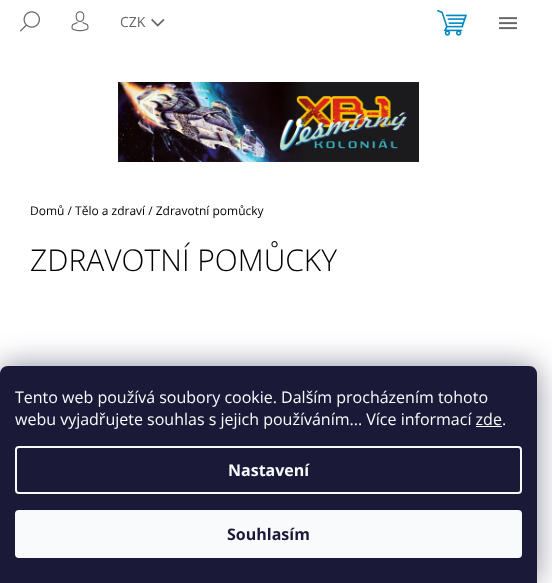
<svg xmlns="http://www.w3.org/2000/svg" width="552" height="583">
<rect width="100%" height="100%" fill="#fff"/>
<image x="20" y="11" width="20" height="21" href="media/1.png"/>
<image x="71" y="11" width="18" height="21" href="media/2.png"/>
<text x="120" y="27" style="font-family:Open Sans;font-size:14px;fill:#666">CZK</text>
<image x="151" y="18" width="14" height="9" href="media/3.png"/>
<image x="437" y="10" width="30" height="26" href="media/4.png"/>
<image x="499" y="17" width="18" height="13" href="media/5.png"/>
<image x="118" y="82" width="301" height="80" href="media/6.png"/>
<text x="30" y="215" style="font-family:Open Sans;font-size:12px;fill:#000">Domů / Tělo a zdraví / Zdravotní pomůcky</text>
<text x="30" y="271" style="font-family:Open Sans;font-size:30px;font-weight:300;fill:#000">ZDRAVOTNÍ POMŮCKY</text>
<rect y="366" width="537" height="217" rx="8" fill="#1b193980" filter="blur(15px)"/>
<path d="M8 366h521c4.5 0 8 3.5 8 8v209h-537v-209c0-4.5 3.5-8 8-8z" fill="#1a1937"/>
<text x="15" y="403" style="font-family:Open Sans;font-size:16px;fill:#f8fafb">Tento web používá soubory cookie. Dalším procházením tohoto</text>
<text x="15" y="425" style="font-family:Open Sans;font-size:16px;fill:#f8fafb">webu vyjadřujete souhlas s jejich používáním... Více informací zde.</text>
<rect x="476" y="426" width="26" height="1" fill="#f8fafb"/>
<rect x="16" y="447" width="505" height="46" rx="3" fill="none" stroke="#f8fafb" stroke-width="2"/>
<text x="228" y="476" style="font-family:Open Sans;font-size:16px;font-weight:bold;fill:#f8fafb">Nastavení</text>
<rect x="15" y="510" width="507" height="48" rx="4" fill="#f8fafb"/>
<text x="227" y="540" style="font-family:Open Sans;font-size:16px;font-weight:bold;fill:#1a1937">Souhlasím</text>
</svg>
